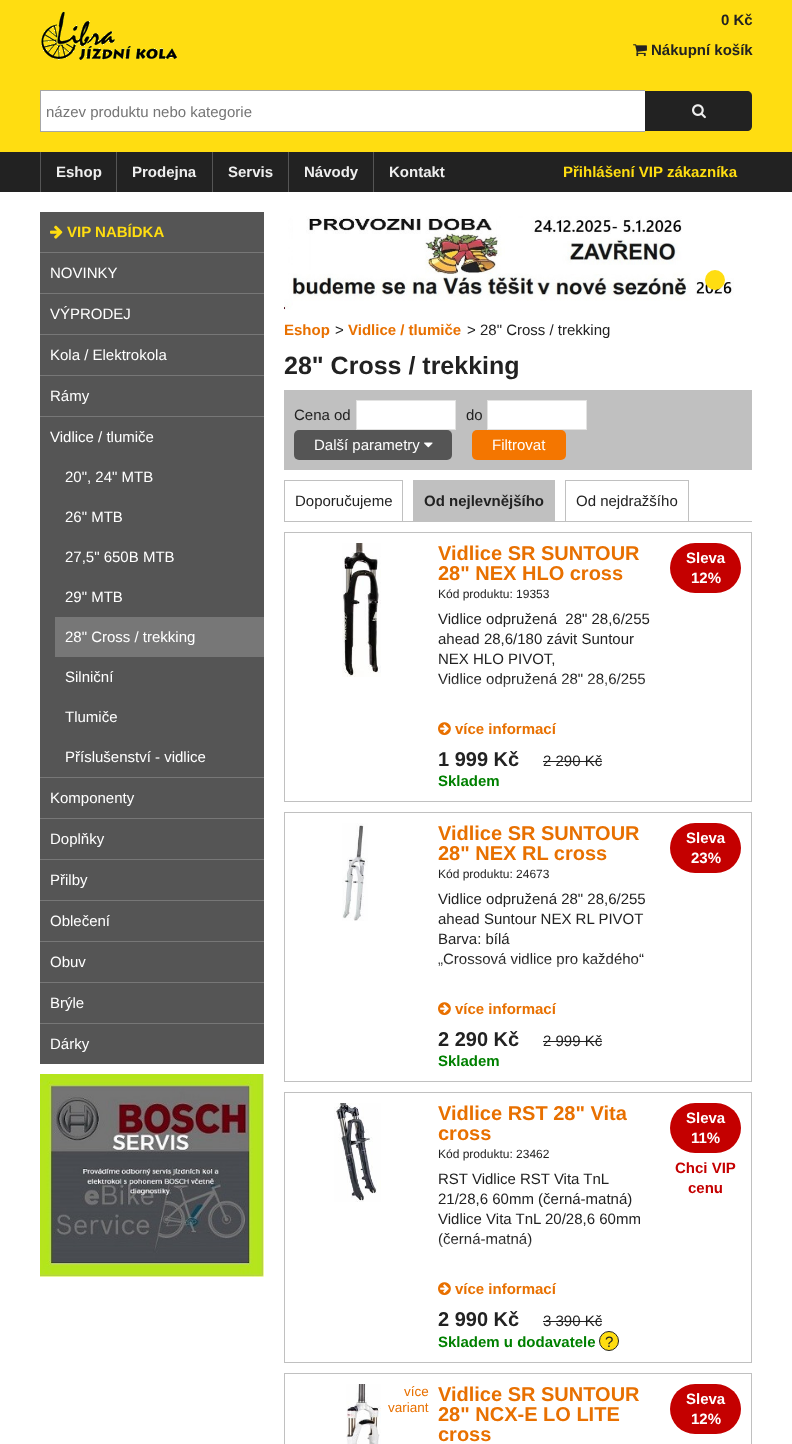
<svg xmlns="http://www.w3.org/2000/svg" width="792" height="1444">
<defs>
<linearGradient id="g1" gradientUnits="userSpaceOnUse" x1="550" y1="679" x2="550" y2="709"><stop offset="0" stop-color="#fff" stop-opacity="0"/><stop offset="1" stop-color="#fff"/></linearGradient>
<linearGradient id="g2" gradientUnits="userSpaceOnUse" x1="550" y1="959" x2="550" y2="989"><stop offset="0" stop-color="#fff" stop-opacity="0"/><stop offset="1" stop-color="#fff"/></linearGradient>
<linearGradient id="g3" gradientUnits="userSpaceOnUse" x1="550" y1="1239" x2="550" y2="1269"><stop offset="0" stop-color="#fff" stop-opacity="0"/><stop offset="1" stop-color="#fff"/></linearGradient>
</defs>
<rect width="100%" height="100%" fill="#fff"/>
<rect width="792" height="152" fill="#fd1"/>
<image x="41" y="11" width="136" height="49" href="media/1.png"/>
<text x="721" y="25" style="font-family:Liberation Sans;font-size:15px;font-weight:bold;fill:#222">0 Kč</text>
<image x="633" y="44" width="14" height="13" href="media/2.png"/>
<text x="651" y="55" style="font-family:Liberation Sans;font-size:15px;font-weight:bold;fill:#222">Nákupní košík</text>
<rect x="41" y="91" width="604" height="40" fill="#fff"/>
<rect x="40" y="90" width="605" height="1" fill="#a6a6a6"/>
<rect x="40" y="131" width="605" height="1" fill="#a6a6a6"/>
<rect x="40" y="90" width="1" height="42" fill="#a6a6a6"/>
<text x="46" y="117" style="font-family:Liberation Sans;font-size:15px;fill:#757575">název produktu nebo kategorie</text>
<path d="M645 91h102c3 0 5 2 5 5v30c0 3-2 5-5 5h-102z" fill="#222"/>
<image x="692" y="104" width="14" height="15" href="media/3.png"/>
<rect y="152" width="792" height="40" fill="#222"/>
<rect x="40" y="152" width="1" height="40" fill="#555"/>
<text x="56" y="177" style="font-family:Liberation Sans;font-size:15px;font-weight:bold;fill:#eee">Eshop</text>
<rect x="116" y="152" width="1" height="40" fill="#555"/>
<text x="132" y="177" style="font-family:Liberation Sans;font-size:15px;font-weight:bold;fill:#eee">Prodejna</text>
<rect x="212" y="152" width="1" height="40" fill="#555"/>
<text x="228" y="177" style="font-family:Liberation Sans;font-size:15px;font-weight:bold;fill:#eee">Servis</text>
<rect x="288" y="152" width="1" height="40" fill="#555"/>
<text x="304" y="177" style="font-family:Liberation Sans;font-size:15px;font-weight:bold;fill:#eee">Návody</text>
<rect x="373" y="152" width="1" height="40" fill="#555"/>
<text x="389" y="177" style="font-family:Liberation Sans;font-size:15px;font-weight:bold;fill:#eee">Kontakt</text>
<text x="563" y="177" style="font-family:Liberation Sans;font-size:15px;font-weight:bold;fill:#fd1">Přihlášení VIP zákazníka</text>
<rect x="40" y="212" width="224" height="40" fill="#555"/>
<image x="50" y="225" width="13" height="14" href="media/4.png"/>
<text x="67" y="237" style="font-family:Liberation Sans;font-size:15px;font-weight:bold;fill:#fd1">VIP NABÍDKA</text>
<rect x="40" y="253" width="224" height="40" fill="#555"/>
<rect x="40" y="252" width="224" height="1" fill="#777"/>
<text x="50" y="278" style="font-family:Liberation Sans;font-size:15px;fill:#fff">NOVINKY</text>
<rect x="40" y="294" width="224" height="40" fill="#555"/>
<rect x="40" y="293" width="224" height="1" fill="#777"/>
<text x="50" y="319" style="font-family:Liberation Sans;font-size:15px;fill:#fff">VÝPRODEJ</text>
<rect x="40" y="335" width="224" height="40" fill="#555"/>
<rect x="40" y="334" width="224" height="1" fill="#777"/>
<text x="50" y="360" style="font-family:Liberation Sans;font-size:15px;fill:#fff">Kola / Elektrokola</text>
<rect x="40" y="376" width="224" height="40" fill="#555"/>
<rect x="40" y="375" width="224" height="1" fill="#777"/>
<text x="50" y="401" style="font-family:Liberation Sans;font-size:15px;fill:#fff">Rámy</text>
<rect x="40" y="417" width="224" height="360" fill="#555"/>
<rect x="40" y="416" width="224" height="1" fill="#777"/>
<text x="50" y="442" style="font-family:Liberation Sans;font-size:15px;fill:#fff">Vidlice / tlumiče</text>
<text x="65" y="482" style="font-family:Liberation Sans;font-size:15px;fill:#fff">20", 24" MTB</text>
<text x="65" y="522" style="font-family:Liberation Sans;font-size:15px;fill:#fff">26" MTB</text>
<text x="65" y="562" style="font-family:Liberation Sans;font-size:15px;fill:#fff">27,5" 650B MTB</text>
<text x="65" y="602" style="font-family:Liberation Sans;font-size:15px;fill:#fff">29" MTB</text>
<rect x="55" y="617" width="209" height="40" fill="#777"/>
<text x="65" y="642" style="font-family:Liberation Sans;font-size:15px;fill:#fff">28" Cross / trekking</text>
<text x="65" y="682" style="font-family:Liberation Sans;font-size:15px;fill:#fff">Silniční</text>
<text x="65" y="722" style="font-family:Liberation Sans;font-size:15px;fill:#fff">Tlumiče</text>
<text x="65" y="762" style="font-family:Liberation Sans;font-size:15px;fill:#fff">Příslušenství - vidlice</text>
<rect x="40" y="778" width="224" height="40" fill="#555"/>
<rect x="40" y="777" width="224" height="1" fill="#777"/>
<text x="50" y="803" style="font-family:Liberation Sans;font-size:15px;fill:#fff">Komponenty</text>
<rect x="40" y="819" width="224" height="40" fill="#555"/>
<rect x="40" y="818" width="224" height="1" fill="#777"/>
<text x="50" y="844" style="font-family:Liberation Sans;font-size:15px;fill:#fff">Doplňky</text>
<rect x="40" y="860" width="224" height="40" fill="#555"/>
<rect x="40" y="859" width="224" height="1" fill="#777"/>
<text x="50" y="885" style="font-family:Liberation Sans;font-size:15px;fill:#fff">Přilby</text>
<rect x="40" y="901" width="224" height="40" fill="#555"/>
<rect x="40" y="900" width="224" height="1" fill="#777"/>
<text x="50" y="926" style="font-family:Liberation Sans;font-size:15px;fill:#fff">Oblečení</text>
<rect x="40" y="942" width="224" height="40" fill="#555"/>
<rect x="40" y="941" width="224" height="1" fill="#777"/>
<text x="50" y="967" style="font-family:Liberation Sans;font-size:15px;fill:#fff">Obuv</text>
<rect x="40" y="983" width="224" height="40" fill="#555"/>
<rect x="40" y="982" width="224" height="1" fill="#777"/>
<text x="50" y="1008" style="font-family:Liberation Sans;font-size:15px;fill:#fff">Brýle</text>
<rect x="40" y="1024" width="224" height="40" fill="#555"/>
<rect x="40" y="1023" width="224" height="1" fill="#777"/>
<text x="50" y="1049" style="font-family:Liberation Sans;font-size:15px;fill:#fff">Dárky</text>
<image x="40" y="1074" width="224" height="203" href="media/5.png"/>
<image x="284" y="216" width="450" height="94" href="media/6.png"/>
<circle cx="715" cy="280" r="10" fill="#fd1"/>
<text x="284" y="335" style="font-family:Liberation Sans;font-size:15px;font-weight:bold;fill:#e87000">Eshop</text>
<text x="335" y="335" style="font-family:Liberation Sans;font-size:15px;fill:#222">&gt;</text>
<text x="348" y="335" style="font-family:Liberation Sans;font-size:15px;font-weight:bold;fill:#e87000">Vidlice / tlumiče</text>
<text x="467" y="335" style="font-family:Liberation Sans;font-size:15px;fill:#222">&gt;</text>
<text x="480" y="335" style="font-family:Liberation Sans;font-size:15px;fill:#222">28" Cross / trekking</text>
<text x="284" y="374" style="font-family:Liberation Sans;font-size:25px;font-weight:bold;fill:#222">28" Cross / trekking</text>
<rect x="284" y="390" width="468" height="80" fill="#c0c0c0"/>
<text x="294" y="420" style="font-family:Liberation Sans;font-size:15px;fill:#222">Cena od</text>
<rect x="356.5" y="400.5" width="99" height="29" fill="#fff" stroke="#e3e3e2"/>
<text x="466" y="420" style="font-family:Liberation Sans;font-size:15px;fill:#222">do</text>
<rect x="487.5" y="400.5" width="99" height="29" fill="#fff" stroke="#e3e3e2"/>
<rect x="294" y="430" width="158" height="30" rx="5" fill="#555"/>
<text x="314" y="450" style="font-family:Liberation Sans;font-size:15px;fill:#fff">Další parametry</text>
<image x="424" y="442" width="9" height="6" href="media/7.png"/>
<rect x="472" y="430" width="94" height="30" rx="5" fill="#f47600"/>
<text x="492" y="450" style="font-family:Liberation Sans;font-size:15px;fill:#fff">Filtrovat</text>
<rect x="284" y="521" width="468" height="1" fill="#c0c0c0"/>
<rect x="284" y="480" width="119" height="1" fill="#c0c0c0"/>
<rect x="402" y="480" width="1" height="41" fill="#c0c0c0"/>
<rect x="284" y="480" width="1" height="41" fill="#c0c0c0"/>
<text x="295" y="506" style="font-family:Liberation Sans;font-size:15px;fill:#222">Doporučujeme</text>
<rect x="413" y="480" width="142" height="41" fill="#c0c0c0"/>
<text x="424" y="506" style="font-family:Liberation Sans;font-size:15px;font-weight:bold;fill:#222">Od nejlevnějšího</text>
<rect x="565" y="480" width="124" height="1" fill="#c0c0c0"/>
<rect x="688" y="480" width="1" height="41" fill="#c0c0c0"/>
<rect x="565" y="480" width="1" height="41" fill="#c0c0c0"/>
<text x="576" y="506" style="font-family:Liberation Sans;font-size:15px;fill:#222">Od nejdražšího</text>
<rect x="284.5" y="532.5" width="467" height="269" fill="none" stroke="#c0c0c0"/>
<image x="342" y="543" width="39" height="134" href="media/8.png"/>
<text x="438" y="560" style="font-family:Liberation Sans;font-size:20px;font-weight:bold;fill:#e87000">Vidlice SR SUNTOUR</text>
<text x="438" y="580" style="font-family:Liberation Sans;font-size:20px;font-weight:bold;fill:#e87000">28" NEX HLO cross</text>
<text x="438" y="598" style="font-family:Liberation Sans;font-size:12px;fill:#222">Kód produktu: 19353</text>
<text x="438" y="624" style="font-family:Liberation Sans;font-size:15px;fill:#222" xml:space="preserve">Vidlice odpružená  28" 28,6/255</text>
<text x="438" y="644" style="font-family:Liberation Sans;font-size:15px;fill:#222">ahead 28,6/180 závit Suntour</text>
<text x="438" y="664" style="font-family:Liberation Sans;font-size:15px;fill:#222">NEX HLO PIVOT,</text>
<text x="438" y="684" style="font-family:Liberation Sans;font-size:15px;fill:#222">Vidlice odpružená 28" 28,6/255</text>
<rect x="440" y="680" width="205" height="8" fill="url(#g1)"/>
<image x="438" y="722" width="13" height="14" href="media/9.png"/>
<text x="455" y="734" style="font-family:Liberation Sans;font-size:15px;font-weight:bold;fill:#e87000">více informací</text>
<text x="438" y="766" style="font-family:Liberation Sans;font-size:20px;font-weight:bold;fill:#222">1 999 Kč</text>
<text x="543" y="766" style="font-family:Liberation Sans;font-size:15px;fill:#222">2 290 Kč</text>
<rect x="543" y="761" width="59" height="1" fill="#222"/>
<text x="438" y="786" style="font-family:Liberation Sans;font-size:15px;font-weight:bold;fill:#008000">Skladem</text>
<rect x="670" y="543" width="71" height="50" rx="25" fill="#c40000"/>
<text x="686" y="563" style="font-family:Liberation Sans;font-size:15px;font-weight:bold;fill:#fff">Sleva</text>
<text x="691" y="583" style="font-family:Liberation Sans;font-size:15px;font-weight:bold;fill:#fff">12%</text>
<rect x="284.5" y="812.5" width="467" height="269" fill="none" stroke="#c0c0c0"/>
<image x="342" y="823" width="26" height="98" href="media/10.png"/>
<text x="438" y="840" style="font-family:Liberation Sans;font-size:20px;font-weight:bold;fill:#e87000">Vidlice SR SUNTOUR</text>
<text x="438" y="860" style="font-family:Liberation Sans;font-size:20px;font-weight:bold;fill:#e87000">28" NEX RL cross</text>
<text x="438" y="878" style="font-family:Liberation Sans;font-size:12px;fill:#222">Kód produktu: 24673</text>
<text x="438" y="904" style="font-family:Liberation Sans;font-size:15px;fill:#222">Vidlice odpružená 28" 28,6/255</text>
<text x="438" y="924" style="font-family:Liberation Sans;font-size:15px;fill:#222">ahead Suntour NEX RL PIVOT</text>
<text x="438" y="944" style="font-family:Liberation Sans;font-size:15px;fill:#222">Barva: bílá</text>
<text x="438" y="964" style="font-family:Liberation Sans;font-size:15px;fill:#222">„Crossová vidlice pro každého“</text>
<rect x="438" y="960" width="200" height="8" fill="url(#g2)"/>
<image x="438" y="1002" width="13" height="14" href="media/9.png"/>
<text x="455" y="1014" style="font-family:Liberation Sans;font-size:15px;font-weight:bold;fill:#e87000">více informací</text>
<text x="438" y="1046" style="font-family:Liberation Sans;font-size:20px;font-weight:bold;fill:#222">2 290 Kč</text>
<text x="543" y="1046" style="font-family:Liberation Sans;font-size:15px;fill:#222">2 999 Kč</text>
<rect x="543" y="1041" width="59" height="1" fill="#222"/>
<text x="438" y="1066" style="font-family:Liberation Sans;font-size:15px;font-weight:bold;fill:#008000">Skladem</text>
<rect x="670" y="823" width="71" height="50" rx="25" fill="#c40000"/>
<text x="686" y="843" style="font-family:Liberation Sans;font-size:15px;font-weight:bold;fill:#fff">Sleva</text>
<text x="691" y="863" style="font-family:Liberation Sans;font-size:15px;font-weight:bold;fill:#fff">23%</text>
<rect x="284.5" y="1092.5" width="467" height="270" fill="none" stroke="#c0c0c0"/>
<image x="334" y="1103" width="47" height="99" href="media/11.png"/>
<text x="438" y="1120" style="font-family:Liberation Sans;font-size:20px;font-weight:bold;fill:#e87000">Vidlice RST 28" Vita</text>
<text x="438" y="1140" style="font-family:Liberation Sans;font-size:20px;font-weight:bold;fill:#e87000">cross</text>
<text x="438" y="1158" style="font-family:Liberation Sans;font-size:12px;fill:#222">Kód produktu: 23462</text>
<text x="438" y="1184" style="font-family:Liberation Sans;font-size:15px;fill:#222">RST Vidlice RST Vita TnL</text>
<text x="438" y="1204" style="font-family:Liberation Sans;font-size:15px;fill:#222">21/28,6 60mm (černá-matná)</text>
<text x="438" y="1224" style="font-family:Liberation Sans;font-size:15px;fill:#222">Vidlice Vita TnL 20/28,6 60mm</text>
<text x="438" y="1244" style="font-family:Liberation Sans;font-size:15px;fill:#222">(černá-matná)</text>
<rect x="438" y="1240" width="93" height="8" fill="url(#g3)"/>
<image x="438" y="1282" width="13" height="14" href="media/9.png"/>
<text x="455" y="1294" style="font-family:Liberation Sans;font-size:15px;font-weight:bold;fill:#e87000">více informací</text>
<text x="438" y="1326" style="font-family:Liberation Sans;font-size:20px;font-weight:bold;fill:#222">2 990 Kč</text>
<text x="543" y="1326" style="font-family:Liberation Sans;font-size:15px;fill:#222">3 390 Kč</text>
<rect x="543" y="1321" width="59" height="1" fill="#222"/>
<text x="438" y="1347" style="font-family:Liberation Sans;font-size:15px;font-weight:bold;fill:#008000">Skladem u dodavatele</text>
<circle cx="609" cy="1341" r="9.5" fill="#fd1" stroke="#222"/>
<text x="605" y="1347" style="font-family:Liberation Sans;font-size:15px;fill:#222">?</text>
<rect x="670" y="1103" width="71" height="50" rx="25" fill="#c40000"/>
<text x="686" y="1123" style="font-family:Liberation Sans;font-size:15px;font-weight:bold;fill:#fff">Sleva</text>
<text x="691" y="1143" style="font-family:Liberation Sans;font-size:15px;font-weight:bold;fill:#fff">11%</text>
<text x="675" y="1173" style="font-family:Liberation Sans;font-size:15px;font-weight:bold;fill:#c40000">Chci VIP</text>
<text x="688" y="1193" style="font-family:Liberation Sans;font-size:15px;font-weight:bold;fill:#c40000">cenu</text>
<rect x="284.5" y="1373.5" width="467" height="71" fill="none" stroke="#c0c0c0"/>
<image x="346" y="1384" width="35" height="60" href="media/12.png"/>
<text x="404" y="1396" style="font-family:Liberation Sans;font-size:13.5px;fill:#e87000">více</text>
<text x="388" y="1412" style="font-family:Liberation Sans;font-size:13.5px;fill:#e87000">variant</text>
<text x="438" y="1401" style="font-family:Liberation Sans;font-size:20px;font-weight:bold;fill:#e87000">Vidlice SR SUNTOUR</text>
<text x="438" y="1421" style="font-family:Liberation Sans;font-size:20px;font-weight:bold;fill:#e87000">28" NCX-E LO LITE</text>
<text x="438" y="1441" style="font-family:Liberation Sans;font-size:20px;font-weight:bold;fill:#e87000">cross</text>
<rect x="670" y="1384" width="71" height="50" rx="25" fill="#c40000"/>
<text x="686" y="1404" style="font-family:Liberation Sans;font-size:15px;font-weight:bold;fill:#fff">Sleva</text>
<text x="691" y="1424" style="font-family:Liberation Sans;font-size:15px;font-weight:bold;fill:#fff">12%</text>
</svg>
